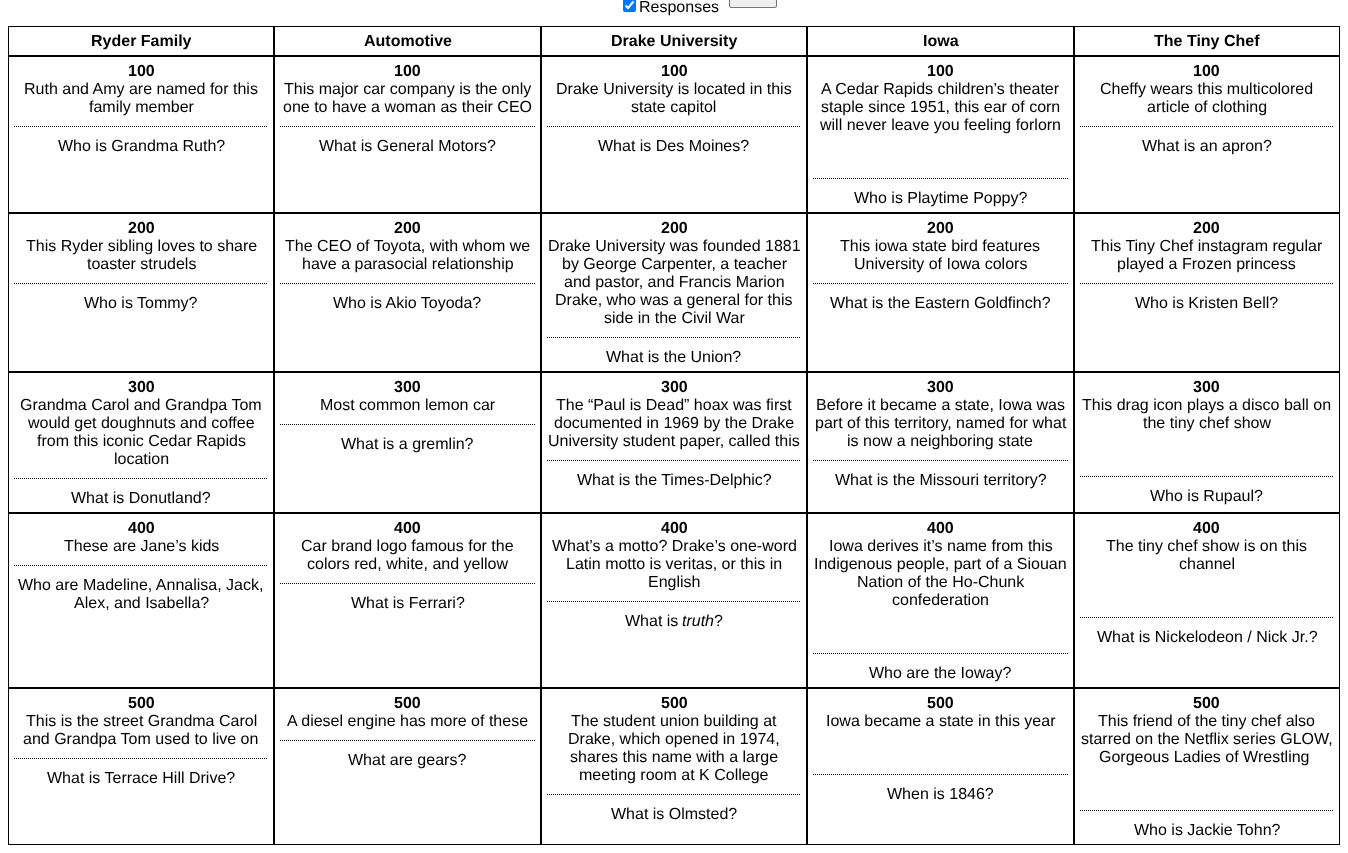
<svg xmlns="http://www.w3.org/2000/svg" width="1348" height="853">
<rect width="100%" height="100%" fill="#fff"/>
<rect x="623" y="-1" width="13" height="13" rx="2" fill="#0075ff"/>
<path d="M625.5 5.5l2.5 2.5l5.5-6.5" fill="none" stroke="#fff" stroke-width="2.1"/>
<text x="639" y="12" style="font-family:Liberation Sans;font-size:16px;fill:#000">Responses</text>
<rect x="729.5" y="-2.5" width="47" height="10" rx="1.5" fill="#efefef" stroke="#767676"/>
<rect x="8.5" y="26.5" width="265" height="29" fill="none" stroke="#000"/>
<text x="91" y="46" style="font-family:Liberation Sans;font-size:16px;font-weight:bold;fill:#000">Ryder Family</text>
<rect x="274.5" y="26.5" width="266" height="29" fill="none" stroke="#000"/>
<text x="364" y="46" style="font-family:Liberation Sans;font-size:16px;font-weight:bold;fill:#000">Automotive</text>
<rect x="541.5" y="26.5" width="265" height="29" fill="none" stroke="#000"/>
<text x="611" y="46" style="font-family:Liberation Sans;font-size:16px;font-weight:bold;fill:#000">Drake University</text>
<rect x="807.5" y="26.5" width="266" height="29" fill="none" stroke="#000"/>
<text x="923" y="46" style="font-family:Liberation Sans;font-size:16px;font-weight:bold;fill:#000">Iowa</text>
<rect x="1074.5" y="26.5" width="265" height="29" fill="none" stroke="#000"/>
<text x="1154" y="46" style="font-family:Liberation Sans;font-size:16px;font-weight:bold;fill:#000">The Tiny Chef</text>
<rect x="8.5" y="56.5" width="265" height="156" fill="none" stroke="#000"/>
<text x="128" y="76" style="font-family:Liberation Sans;font-size:16px;font-weight:bold;fill:#000">100</text>
<text x="24" y="94" style="font-family:Liberation Sans;font-size:16px;fill:#000">Ruth and Amy are named for this</text>
<text x="89" y="112" style="font-family:Liberation Sans;font-size:16px;fill:#000">family member</text>
<path d="M14 126.5h254" fill="none" stroke="#000" stroke-dasharray="1 1"/>
<text x="58" y="151" style="font-family:Liberation Sans;font-size:16px;fill:#000">Who is Grandma Ruth?</text>
<rect x="274.5" y="56.5" width="266" height="156" fill="none" stroke="#000"/>
<text x="394" y="76" style="font-family:Liberation Sans;font-size:16px;font-weight:bold;fill:#000">100</text>
<text x="284" y="94" style="font-family:Liberation Sans;font-size:16px;fill:#000">This major car company is the only</text>
<text x="283" y="112" style="font-family:Liberation Sans;font-size:16px;fill:#000">one to have a woman as their CEO</text>
<path d="M280 126.5h255" fill="none" stroke="#000" stroke-dasharray="1 1"/>
<text x="319" y="151" style="font-family:Liberation Sans;font-size:16px;fill:#000">What is General Motors?</text>
<rect x="541.5" y="56.5" width="265" height="156" fill="none" stroke="#000"/>
<text x="661" y="76" style="font-family:Liberation Sans;font-size:16px;font-weight:bold;fill:#000">100</text>
<text x="556" y="94" style="font-family:Liberation Sans;font-size:16px;fill:#000">Drake University is located in this</text>
<text x="631" y="112" style="font-family:Liberation Sans;font-size:16px;fill:#000">state capitol</text>
<path d="M547 126.5h254" fill="none" stroke="#000" stroke-dasharray="1 1"/>
<text x="598" y="151" style="font-family:Liberation Sans;font-size:16px;fill:#000">What is Des Moines?</text>
<rect x="807.5" y="56.5" width="266" height="156" fill="none" stroke="#000"/>
<text x="927" y="76" style="font-family:Liberation Sans;font-size:16px;font-weight:bold;fill:#000">100</text>
<text x="821" y="94" style="font-family:Liberation Sans;font-size:16px;fill:#000">A Cedar Rapids children’s theater</text>
<text x="821" y="112" style="font-family:Liberation Sans;font-size:16px;fill:#000">staple since 1951, this ear of corn</text>
<text x="820" y="130" style="font-family:Liberation Sans;font-size:16px;fill:#000">will never leave you feeling forlorn</text>
<path d="M813 178.5h255" fill="none" stroke="#000" stroke-dasharray="1 1"/>
<text x="854" y="203" style="font-family:Liberation Sans;font-size:16px;fill:#000">Who is Playtime Poppy?</text>
<rect x="1074.5" y="56.5" width="265" height="156" fill="none" stroke="#000"/>
<text x="1193" y="76" style="font-family:Liberation Sans;font-size:16px;font-weight:bold;fill:#000">100</text>
<text x="1100" y="94" style="font-family:Liberation Sans;font-size:16px;fill:#000">Cheffy wears this multicolored</text>
<text x="1147" y="112" style="font-family:Liberation Sans;font-size:16px;fill:#000">article of clothing</text>
<path d="M1080 126.5h254" fill="none" stroke="#000" stroke-dasharray="1 1"/>
<text x="1142" y="151" style="font-family:Liberation Sans;font-size:16px;fill:#000">What is an apron?</text>
<rect x="8.5" y="213.5" width="265" height="158" fill="none" stroke="#000"/>
<text x="128" y="233" style="font-family:Liberation Sans;font-size:16px;font-weight:bold;fill:#000">200</text>
<text x="26" y="251" style="font-family:Liberation Sans;font-size:16px;fill:#000">This Ryder sibling loves to share</text>
<text x="87" y="269" style="font-family:Liberation Sans;font-size:16px;fill:#000">toaster strudels</text>
<path d="M14 283.5h254" fill="none" stroke="#000" stroke-dasharray="1 1"/>
<text x="84" y="308" style="font-family:Liberation Sans;font-size:16px;fill:#000">Who is Tommy?</text>
<rect x="274.5" y="213.5" width="266" height="158" fill="none" stroke="#000"/>
<text x="394" y="233" style="font-family:Liberation Sans;font-size:16px;font-weight:bold;fill:#000">200</text>
<text x="285" y="251" style="font-family:Liberation Sans;font-size:16px;fill:#000">The CEO of Toyota, with whom we</text>
<text x="302" y="269" style="font-family:Liberation Sans;font-size:16px;fill:#000">have a parasocial relationship</text>
<path d="M280 283.5h255" fill="none" stroke="#000" stroke-dasharray="1 1"/>
<text x="333" y="308" style="font-family:Liberation Sans;font-size:16px;fill:#000">Who is Akio Toyoda?</text>
<rect x="541.5" y="213.5" width="265" height="158" fill="none" stroke="#000"/>
<text x="661" y="233" style="font-family:Liberation Sans;font-size:16px;font-weight:bold;fill:#000">200</text>
<text x="548" y="251" style="font-family:Liberation Sans;font-size:16px;fill:#000">Drake University was founded 1881</text>
<text x="562" y="269" style="font-family:Liberation Sans;font-size:16px;fill:#000">by George Carpenter, a teacher</text>
<text x="564" y="287" style="font-family:Liberation Sans;font-size:16px;fill:#000">and pastor, and Francis Marion</text>
<text x="555" y="305" style="font-family:Liberation Sans;font-size:16px;fill:#000">Drake, who was a general for this</text>
<text x="604" y="323" style="font-family:Liberation Sans;font-size:16px;fill:#000">side in the Civil War</text>
<path d="M547 337.5h254" fill="none" stroke="#000" stroke-dasharray="1 1"/>
<text x="606" y="362" style="font-family:Liberation Sans;font-size:16px;fill:#000">What is the Union?</text>
<rect x="807.5" y="213.5" width="266" height="158" fill="none" stroke="#000"/>
<text x="927" y="233" style="font-family:Liberation Sans;font-size:16px;font-weight:bold;fill:#000">200</text>
<text x="840" y="251" style="font-family:Liberation Sans;font-size:16px;fill:#000">This iowa state bird features</text>
<text x="854" y="269" style="font-family:Liberation Sans;font-size:16px;fill:#000">University of Iowa colors</text>
<path d="M813 283.5h255" fill="none" stroke="#000" stroke-dasharray="1 1"/>
<text x="830" y="308" style="font-family:Liberation Sans;font-size:16px;fill:#000">What is the Eastern Goldfinch?</text>
<rect x="1074.5" y="213.5" width="265" height="158" fill="none" stroke="#000"/>
<text x="1193" y="233" style="font-family:Liberation Sans;font-size:16px;font-weight:bold;fill:#000">200</text>
<text x="1091" y="251" style="font-family:Liberation Sans;font-size:16px;fill:#000">This Tiny Chef instagram regular</text>
<text x="1117" y="269" style="font-family:Liberation Sans;font-size:16px;fill:#000">played a Frozen princess</text>
<path d="M1080 283.5h254" fill="none" stroke="#000" stroke-dasharray="1 1"/>
<text x="1135" y="308" style="font-family:Liberation Sans;font-size:16px;fill:#000">Who is Kristen Bell?</text>
<rect x="8.5" y="372.5" width="265" height="140" fill="none" stroke="#000"/>
<text x="128" y="392" style="font-family:Liberation Sans;font-size:16px;font-weight:bold;fill:#000">300</text>
<text x="20" y="410" style="font-family:Liberation Sans;font-size:16px;fill:#000">Grandma Carol and Grandpa Tom</text>
<text x="28" y="428" style="font-family:Liberation Sans;font-size:16px;fill:#000">would get doughnuts and coffee</text>
<text x="37" y="446" style="font-family:Liberation Sans;font-size:16px;fill:#000">from this iconic Cedar Rapids</text>
<text x="114" y="464" style="font-family:Liberation Sans;font-size:16px;fill:#000">location</text>
<path d="M14 478.5h254" fill="none" stroke="#000" stroke-dasharray="1 1"/>
<text x="71" y="503" style="font-family:Liberation Sans;font-size:16px;fill:#000">What is Donutland?</text>
<rect x="274.5" y="372.5" width="266" height="140" fill="none" stroke="#000"/>
<text x="394" y="392" style="font-family:Liberation Sans;font-size:16px;font-weight:bold;fill:#000">300</text>
<text x="320" y="410" style="font-family:Liberation Sans;font-size:16px;fill:#000">Most common lemon car</text>
<path d="M280 424.5h255" fill="none" stroke="#000" stroke-dasharray="1 1"/>
<text x="341" y="449" style="font-family:Liberation Sans;font-size:16px;fill:#000">What is a gremlin?</text>
<rect x="541.5" y="372.5" width="265" height="140" fill="none" stroke="#000"/>
<text x="661" y="392" style="font-family:Liberation Sans;font-size:16px;font-weight:bold;fill:#000">300</text>
<text x="556" y="410" style="font-family:Liberation Sans;font-size:16px;fill:#000">The “Paul is Dead” hoax was first</text>
<text x="554" y="428" style="font-family:Liberation Sans;font-size:16px;fill:#000">documented in 1969 by the Drake</text>
<text x="548" y="446" style="font-family:Liberation Sans;font-size:16px;fill:#000">University student paper, called this</text>
<path d="M547 460.5h254" fill="none" stroke="#000" stroke-dasharray="1 1"/>
<text x="577" y="485" style="font-family:Liberation Sans;font-size:16px;fill:#000">What is the Times-Delphic?</text>
<rect x="807.5" y="372.5" width="266" height="140" fill="none" stroke="#000"/>
<text x="927" y="392" style="font-family:Liberation Sans;font-size:16px;font-weight:bold;fill:#000">300</text>
<text x="816" y="410" style="font-family:Liberation Sans;font-size:16px;fill:#000">Before it became a state, Iowa was</text>
<text x="815" y="428" style="font-family:Liberation Sans;font-size:16px;fill:#000">part of this territory, named for what</text>
<text x="847" y="446" style="font-family:Liberation Sans;font-size:16px;fill:#000">is now a neighboring state</text>
<path d="M813 460.5h255" fill="none" stroke="#000" stroke-dasharray="1 1"/>
<text x="835" y="485" style="font-family:Liberation Sans;font-size:16px;fill:#000">What is the Missouri territory?</text>
<rect x="1074.5" y="372.5" width="265" height="140" fill="none" stroke="#000"/>
<text x="1193" y="392" style="font-family:Liberation Sans;font-size:16px;font-weight:bold;fill:#000">300</text>
<text x="1082" y="410" style="font-family:Liberation Sans;font-size:16px;fill:#000">This drag icon plays a disco ball on</text>
<text x="1143" y="428" style="font-family:Liberation Sans;font-size:16px;fill:#000">the tiny chef show</text>
<path d="M1080 476.5h254" fill="none" stroke="#000" stroke-dasharray="1 1"/>
<text x="1150" y="501" style="font-family:Liberation Sans;font-size:16px;fill:#000">Who is Rupaul?</text>
<rect x="8.5" y="513.5" width="265" height="174" fill="none" stroke="#000"/>
<text x="128" y="533" style="font-family:Liberation Sans;font-size:16px;font-weight:bold;fill:#000">400</text>
<text x="64" y="551" style="font-family:Liberation Sans;font-size:16px;fill:#000">These are Jane’s kids</text>
<path d="M14 565.5h254" fill="none" stroke="#000" stroke-dasharray="1 1"/>
<text x="18" y="590" style="font-family:Liberation Sans;font-size:16px;fill:#000">Who are Madeline, Annalisa, Jack,</text>
<text x="74" y="608" style="font-family:Liberation Sans;font-size:16px;fill:#000">Alex, and Isabella?</text>
<rect x="274.5" y="513.5" width="266" height="174" fill="none" stroke="#000"/>
<text x="394" y="533" style="font-family:Liberation Sans;font-size:16px;font-weight:bold;fill:#000">400</text>
<text x="301" y="551" style="font-family:Liberation Sans;font-size:16px;fill:#000">Car brand logo famous for the</text>
<text x="307" y="569" style="font-family:Liberation Sans;font-size:16px;fill:#000">colors red, white, and yellow</text>
<path d="M280 583.5h255" fill="none" stroke="#000" stroke-dasharray="1 1"/>
<text x="351" y="608" style="font-family:Liberation Sans;font-size:16px;fill:#000">What is Ferrari?</text>
<rect x="541.5" y="513.5" width="265" height="174" fill="none" stroke="#000"/>
<text x="661" y="533" style="font-family:Liberation Sans;font-size:16px;font-weight:bold;fill:#000">400</text>
<text x="552" y="551" style="font-family:Liberation Sans;font-size:16px;fill:#000">What’s a motto? Drake’s one-word</text>
<text x="566" y="569" style="font-family:Liberation Sans;font-size:16px;fill:#000">Latin motto is veritas, or this in</text>
<text x="648" y="587" style="font-family:Liberation Sans;font-size:16px;fill:#000">English</text>
<path d="M547 601.5h254" fill="none" stroke="#000" stroke-dasharray="1 1"/>
<text x="625" y="626" style="font-family:Liberation Sans;font-size:16px;fill:#000">What is</text>
<text x="682" y="626" style="font-family:Liberation Sans;font-size:16px;font-style:italic;fill:#000">truth</text>
<text x="714" y="626" style="font-family:Liberation Sans;font-size:16px;fill:#000">?</text>
<rect x="807.5" y="513.5" width="266" height="174" fill="none" stroke="#000"/>
<text x="927" y="533" style="font-family:Liberation Sans;font-size:16px;font-weight:bold;fill:#000">400</text>
<text x="829" y="551" style="font-family:Liberation Sans;font-size:16px;fill:#000">Iowa derives it’s name from this</text>
<text x="814" y="569" style="font-family:Liberation Sans;font-size:16px;fill:#000">Indigenous people, part of a Siouan</text>
<text x="857" y="587" style="font-family:Liberation Sans;font-size:16px;fill:#000">Nation of the Ho-Chunk</text>
<text x="892" y="605" style="font-family:Liberation Sans;font-size:16px;fill:#000">confederation</text>
<path d="M813 653.5h255" fill="none" stroke="#000" stroke-dasharray="1 1"/>
<text x="869" y="678" style="font-family:Liberation Sans;font-size:16px;fill:#000">Who are the Ioway?</text>
<rect x="1074.5" y="513.5" width="265" height="174" fill="none" stroke="#000"/>
<text x="1193" y="533" style="font-family:Liberation Sans;font-size:16px;font-weight:bold;fill:#000">400</text>
<text x="1106" y="551" style="font-family:Liberation Sans;font-size:16px;fill:#000">The tiny chef show is on this</text>
<text x="1179" y="569" style="font-family:Liberation Sans;font-size:16px;fill:#000">channel</text>
<path d="M1080 617.5h254" fill="none" stroke="#000" stroke-dasharray="1 1"/>
<text x="1097" y="642" style="font-family:Liberation Sans;font-size:16px;fill:#000">What is Nickelodeon / Nick Jr.?</text>
<rect x="8.5" y="688.5" width="265" height="156" fill="none" stroke="#000"/>
<text x="128" y="708" style="font-family:Liberation Sans;font-size:16px;font-weight:bold;fill:#000">500</text>
<text x="26" y="726" style="font-family:Liberation Sans;font-size:16px;fill:#000">This is the street Grandma Carol</text>
<text x="23" y="744" style="font-family:Liberation Sans;font-size:16px;fill:#000">and Grandpa Tom used to live on</text>
<path d="M14 758.5h254" fill="none" stroke="#000" stroke-dasharray="1 1"/>
<text x="47" y="783" style="font-family:Liberation Sans;font-size:16px;fill:#000">What is Terrace Hill Drive?</text>
<rect x="274.5" y="688.5" width="266" height="156" fill="none" stroke="#000"/>
<text x="394" y="708" style="font-family:Liberation Sans;font-size:16px;font-weight:bold;fill:#000">500</text>
<text x="287" y="726" style="font-family:Liberation Sans;font-size:16px;fill:#000">A diesel engine has more of these</text>
<path d="M280 740.5h255" fill="none" stroke="#000" stroke-dasharray="1 1"/>
<text x="348" y="765" style="font-family:Liberation Sans;font-size:16px;fill:#000">What are gears?</text>
<rect x="541.5" y="688.5" width="265" height="156" fill="none" stroke="#000"/>
<text x="661" y="708" style="font-family:Liberation Sans;font-size:16px;font-weight:bold;fill:#000">500</text>
<text x="571" y="726" style="font-family:Liberation Sans;font-size:16px;fill:#000">The student union building at</text>
<text x="568" y="744" style="font-family:Liberation Sans;font-size:16px;fill:#000">Drake, which opened in 1974,</text>
<text x="570" y="762" style="font-family:Liberation Sans;font-size:16px;fill:#000">shares this name with a large</text>
<text x="579" y="780" style="font-family:Liberation Sans;font-size:16px;fill:#000">meeting room at K College</text>
<path d="M547 794.5h254" fill="none" stroke="#000" stroke-dasharray="1 1"/>
<text x="611" y="819" style="font-family:Liberation Sans;font-size:16px;fill:#000">What is Olmsted?</text>
<rect x="807.5" y="688.5" width="266" height="156" fill="none" stroke="#000"/>
<text x="927" y="708" style="font-family:Liberation Sans;font-size:16px;font-weight:bold;fill:#000">500</text>
<text x="826" y="726" style="font-family:Liberation Sans;font-size:16px;fill:#000">Iowa became a state in this year</text>
<path d="M813 774.5h255" fill="none" stroke="#000" stroke-dasharray="1 1"/>
<text x="887" y="799" style="font-family:Liberation Sans;font-size:16px;fill:#000">When is 1846?</text>
<rect x="1074.5" y="688.5" width="265" height="156" fill="none" stroke="#000"/>
<text x="1193" y="708" style="font-family:Liberation Sans;font-size:16px;font-weight:bold;fill:#000">500</text>
<text x="1098" y="726" style="font-family:Liberation Sans;font-size:16px;fill:#000">This friend of the tiny chef also</text>
<text x="1081" y="744" style="font-family:Liberation Sans;font-size:16px;fill:#000">starred on the Netflix series GLOW,</text>
<text x="1099" y="762" style="font-family:Liberation Sans;font-size:16px;fill:#000">Gorgeous Ladies of Wrestling</text>
<path d="M1080 810.5h254" fill="none" stroke="#000" stroke-dasharray="1 1"/>
<text x="1134" y="835" style="font-family:Liberation Sans;font-size:16px;fill:#000">Who is Jackie Tohn?</text>
</svg>
